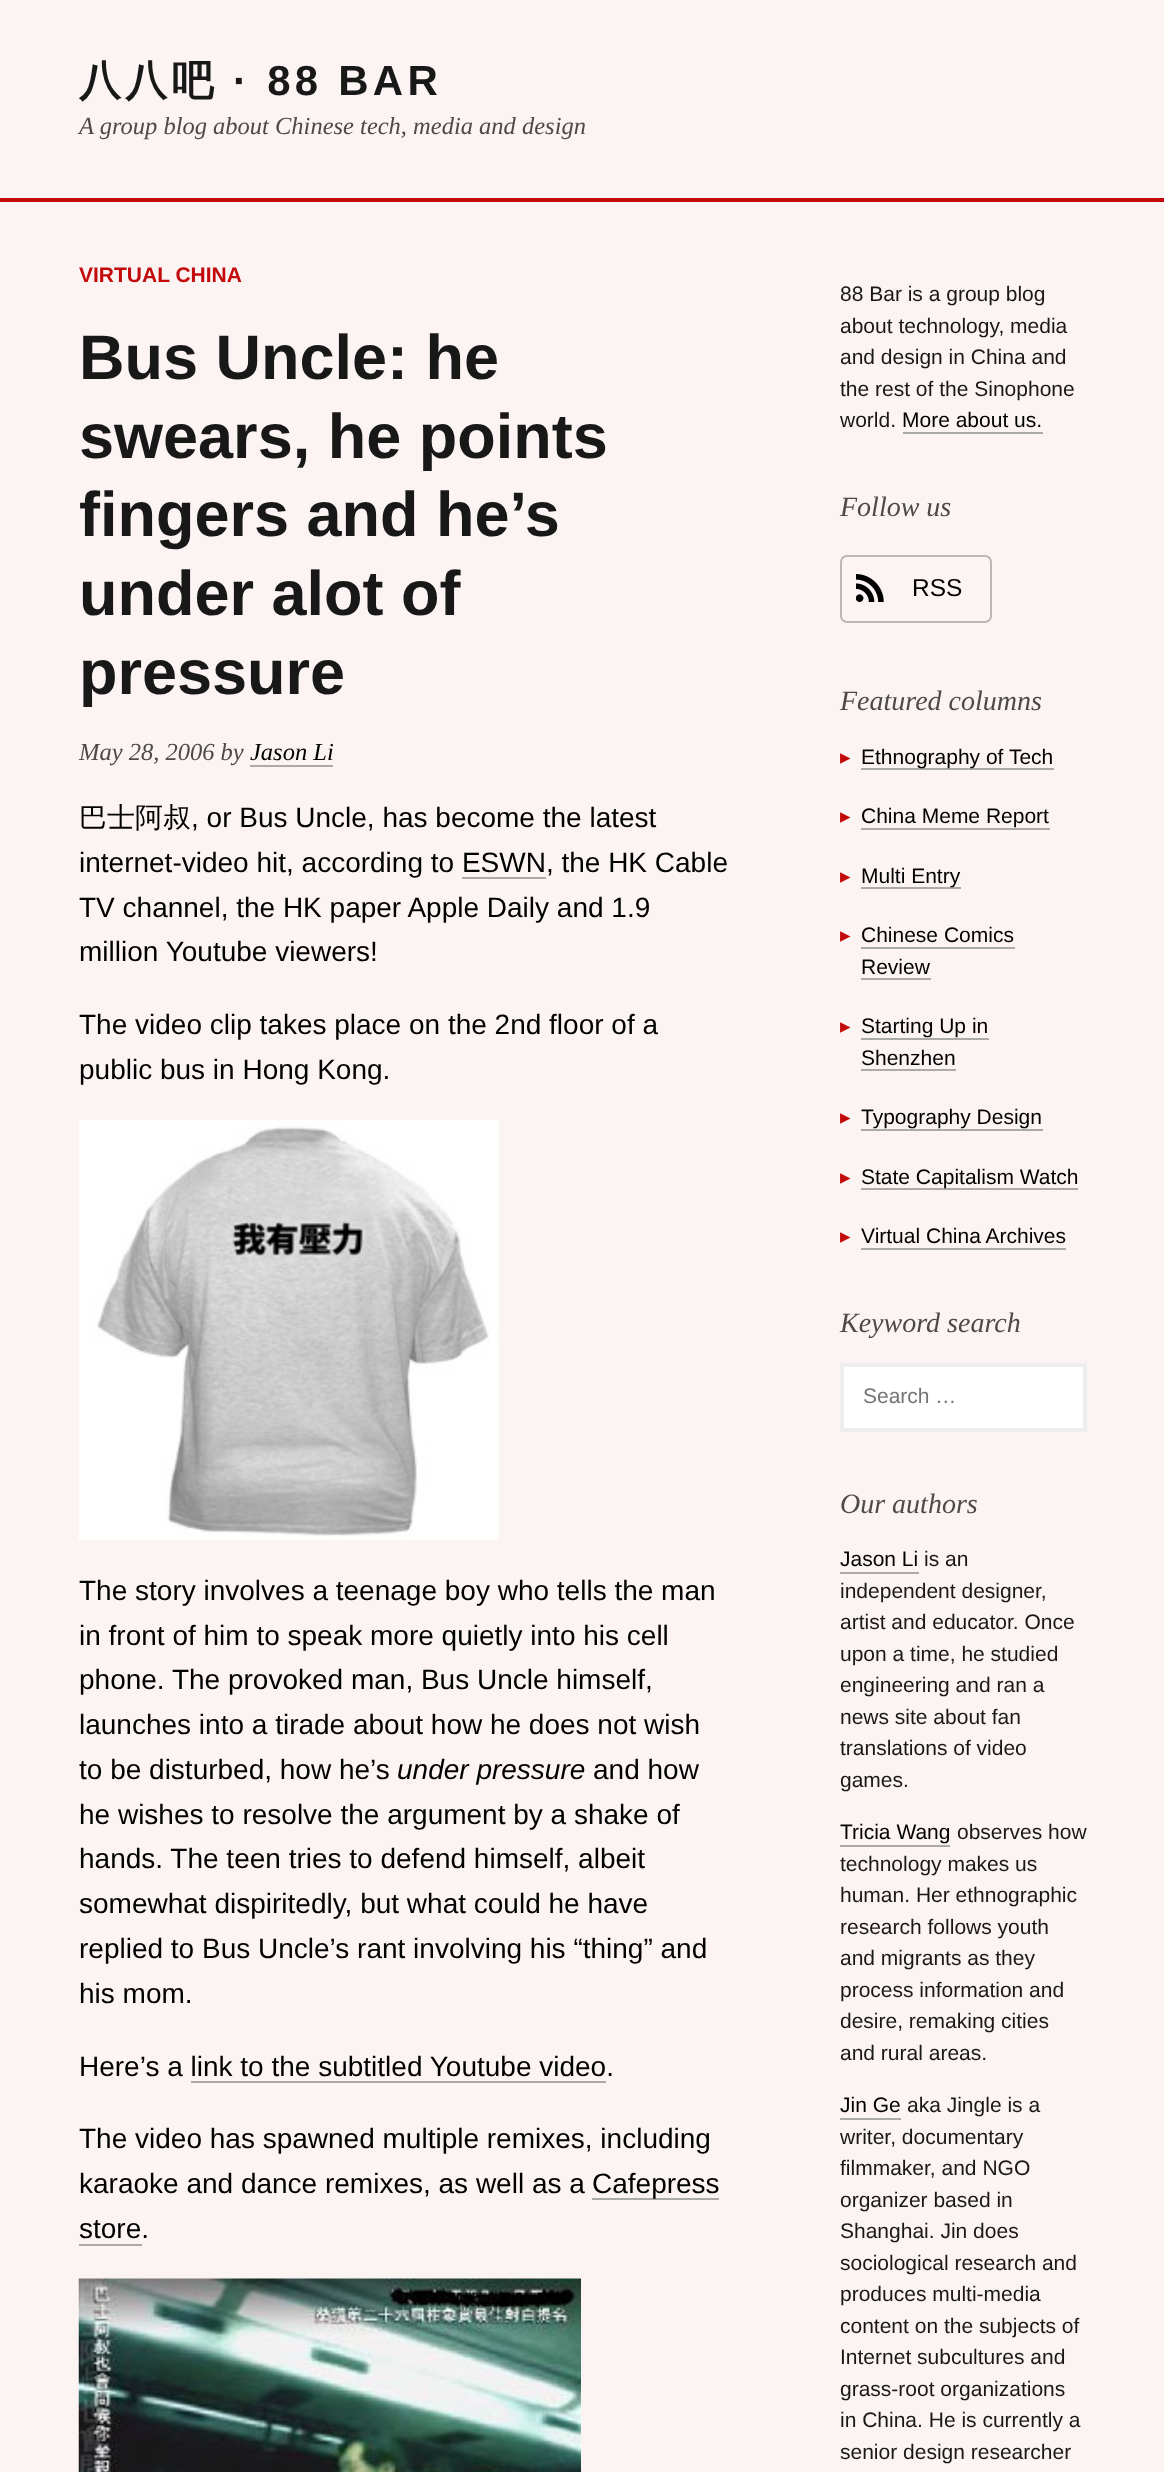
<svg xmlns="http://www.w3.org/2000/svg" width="1164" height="2472">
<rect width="100%" height="100%" fill="#fcf3f3"/>
<text x="79" y="95" style="font-family:WenQuanYi Zen Hei;font-size:42px;font-weight:bold;letter-spacing:4.25px;fill:#191818">八八吧</text>
<text x="233" y="95" style="font-family:Liberation Sans;font-size:42px;font-weight:bold;letter-spacing:4.25px;fill:#191818">· 88 BAR</text>
<text x="79" y="134" style="font-family:Liberation Serif;font-size:24.5px;font-style:italic;fill:#4c4949">A group blog about Chinese tech, media and design</text>
<rect y="198" width="1164" height="4" fill="#c20a0a"/>
<text x="79" y="282" style="font-family:Liberation Sans;font-size:21px;font-weight:bold;fill:#c20a0a">VIRTUAL CHINA</text>
<text x="79" y="379" style="font-family:Liberation Sans;font-size:63px;font-weight:bold;fill:#191818">Bus Uncle: he</text>
<text x="79" y="458" style="font-family:Liberation Sans;font-size:63px;font-weight:bold;fill:#191818">swears, he points</text>
<text x="79" y="536" style="font-family:Liberation Sans;font-size:63px;font-weight:bold;fill:#191818">fingers and he’s</text>
<text x="79" y="615" style="font-family:Liberation Sans;font-size:63px;font-weight:bold;fill:#191818">under alot of</text>
<text x="79" y="694" style="font-family:Liberation Sans;font-size:63px;font-weight:bold;fill:#191818">pressure</text>
<text x="79" y="760" style="font-family:Liberation Serif;font-size:24.5px;font-style:italic;fill:#4c4949">May 28, 2006 by</text>
<text x="250" y="760" style="font-family:Liberation Serif;font-size:24.5px;font-style:italic;fill:#000">Jason Li</text>
<rect x="250" y="765" width="83" height="2" fill="#aaa"/>
<text x="79" y="827" style="font-family:WenQuanYi Zen Hei;font-size:28px;font-weight:500;fill:#000">巴士阿叔</text>
<text x="191" y="827" style="font-family:Liberation Sans;font-size:28px;fill:#000">, or Bus Uncle, has become the latest</text>
<text x="79" y="872" style="font-family:Liberation Sans;font-size:28px;fill:#000">internet-video hit, according to ESWN, the HK Cable</text>
<rect x="462" y="877" width="84" height="2" fill="#aaa"/>
<text x="79" y="917" style="font-family:Liberation Sans;font-size:28px;fill:#000">TV channel, the HK paper Apple Daily and 1.9</text>
<text x="79" y="961" style="font-family:Liberation Sans;font-size:28px;fill:#000">million Youtube viewers!</text>
<text x="79" y="1034" style="font-family:Liberation Sans;font-size:28px;fill:#000">The video clip takes place on the 2nd floor of a</text>
<text x="79" y="1079" style="font-family:Liberation Sans;font-size:28px;fill:#000">public bus in Hong Kong.</text>
<image x="79" y="1120" width="420" height="420" href="media/1.png"/>
<text x="79" y="1600" style="font-family:Liberation Sans;font-size:28px;fill:#000">The story involves a teenage boy who tells the man</text>
<text x="79" y="1645" style="font-family:Liberation Sans;font-size:28px;fill:#000">in front of him to speak more quietly into his cell</text>
<text x="79" y="1689" style="font-family:Liberation Sans;font-size:28px;fill:#000">phone. The provoked man, Bus Uncle himself,</text>
<text x="79" y="1734" style="font-family:Liberation Sans;font-size:28px;fill:#000">launches into a tirade about how he does not wish</text>
<text x="79" y="1779" style="font-family:Liberation Sans;font-size:28px;fill:#000">to be disturbed, how he’s</text>
<text x="397" y="1779" style="font-family:Liberation Sans;font-size:28px;font-style:italic;fill:#000">under pressure</text>
<text x="593" y="1779" style="font-family:Liberation Sans;font-size:28px;fill:#000">and how</text>
<text x="79" y="1824" style="font-family:Liberation Sans;font-size:28px;fill:#000">he wishes to resolve the argument by a shake of</text>
<text x="79" y="1868" style="font-family:Liberation Sans;font-size:28px;fill:#000">hands. The teen tries to defend himself, albeit</text>
<text x="79" y="1913" style="font-family:Liberation Sans;font-size:28px;fill:#000">somewhat dispiritedly, but what could he have</text>
<text x="79" y="1958" style="font-family:Liberation Sans;font-size:28px;fill:#000">replied to Bus Uncle’s rant involving his “thing” and</text>
<text x="79" y="2003" style="font-family:Liberation Sans;font-size:28px;fill:#000">his mom.</text>
<text x="79" y="2076" style="font-family:Liberation Sans;font-size:28px;fill:#000">Here’s a link to the subtitled Youtube video.</text>
<rect x="191" y="2081" width="415" height="2" fill="#aaa"/>
<text x="79" y="2148" style="font-family:Liberation Sans;font-size:28px;fill:#000">The video has spawned multiple remixes, including</text>
<text x="79" y="2193" style="font-family:Liberation Sans;font-size:28px;fill:#000">karaoke and dance remixes, as well as a</text>
<rect x="592" y="2198" width="127" height="2" fill="#aaa"/>
<text x="592" y="2193" style="font-family:Liberation Sans;font-size:28px;fill:#000">Cafepress</text>
<text x="79" y="2238" style="font-family:Liberation Sans;font-size:28px;fill:#000">store.</text>
<rect x="79" y="2244" width="63" height="2" fill="#aaa"/>
<image x="78" y="2278" width="503" height="194" href="media/2.png"/>
<text x="840" y="301" style="font-family:Liberation Sans;font-size:21px;fill:#191818">88 Bar is a group blog</text>
<text x="840" y="333" style="font-family:Liberation Sans;font-size:21px;fill:#191818">about technology, media</text>
<text x="840" y="364" style="font-family:Liberation Sans;font-size:21px;fill:#191818">and design in China and</text>
<text x="840" y="396" style="font-family:Liberation Sans;font-size:21px;fill:#191818">the rest of the Sinophone</text>
<text x="840" y="427" style="font-family:Liberation Sans;font-size:21px;fill:#191818">world.</text>
<text x="902" y="427" style="font-family:Liberation Sans;font-size:21px;fill:#000">More about us.</text>
<rect x="903" y="432" width="140" height="2" fill="#aaa"/>
<text x="840" y="516" style="font-family:Liberation Serif;font-size:28px;font-style:italic;fill:#4c4949">Follow us</text>
<rect x="841" y="556" width="150" height="66" rx="6" fill="none" stroke="#bdb6b6" stroke-width="2"/>
<image x="856" y="574" width="28" height="28" href="media/3.png"/>
<text x="912" y="596" style="font-family:Liberation Sans;font-size:24.5px;fill:#000">RSS</text>
<text x="840" y="710" style="font-family:Liberation Serif;font-size:28px;font-style:italic;fill:#4c4949">Featured columns</text>
<text x="840" y="764" style="font-family:DejaVu Sans;font-size:21px;fill:#c20a0a">▸</text>
<rect x="861" y="768" width="193" height="2" fill="#aaa"/>
<text x="861" y="764" style="font-family:Liberation Sans;font-size:21px;fill:#000">Ethnography of Tech</text>
<text x="840" y="823" style="font-family:DejaVu Sans;font-size:21px;fill:#c20a0a">▸</text>
<text x="861" y="823" style="font-family:Liberation Sans;font-size:21px;fill:#000">China Meme Report</text>
<rect x="861" y="828" width="189" height="2" fill="#aaa"/>
<text x="840" y="883" style="font-family:DejaVu Sans;font-size:21px;fill:#c20a0a">▸</text>
<rect x="861" y="887" width="100" height="2" fill="#aaa"/>
<text x="861" y="883" style="font-family:Liberation Sans;font-size:21px;fill:#000">Multi Entry</text>
<text x="840" y="942" style="font-family:DejaVu Sans;font-size:21px;fill:#c20a0a">▸</text>
<text x="861" y="942" style="font-family:Liberation Sans;font-size:21px;fill:#000">Chinese Comics</text>
<rect x="861" y="947" width="154" height="2" fill="#aaa"/>
<text x="861" y="974" style="font-family:Liberation Sans;font-size:21px;fill:#000">Review</text>
<rect x="861" y="978" width="70" height="2" fill="#aaa"/>
<text x="840" y="1033" style="font-family:DejaVu Sans;font-size:21px;fill:#c20a0a">▸</text>
<text x="861" y="1033" style="font-family:Liberation Sans;font-size:21px;fill:#000">Starting Up in</text>
<rect x="861" y="1038" width="128" height="2" fill="#aaa"/>
<text x="861" y="1065" style="font-family:Liberation Sans;font-size:21px;fill:#000">Shenzhen</text>
<rect x="861" y="1069" width="95" height="2" fill="#aaa"/>
<text x="840" y="1124" style="font-family:DejaVu Sans;font-size:21px;fill:#c20a0a">▸</text>
<text x="861" y="1124" style="font-family:Liberation Sans;font-size:21px;fill:#000">Typography Design</text>
<rect x="861" y="1129" width="182" height="2" fill="#aaa"/>
<text x="840" y="1184" style="font-family:DejaVu Sans;font-size:21px;fill:#c20a0a">▸</text>
<rect x="861" y="1188" width="217" height="2" fill="#aaa"/>
<text x="861" y="1184" style="font-family:Liberation Sans;font-size:21px;fill:#000">State Capitalism Watch</text>
<text x="840" y="1243" style="font-family:DejaVu Sans;font-size:21px;fill:#c20a0a">▸</text>
<text x="861" y="1243" style="font-family:Liberation Sans;font-size:21px;fill:#000">Virtual China Archives</text>
<rect x="861" y="1248" width="205" height="2" fill="#aaa"/>
<text x="840" y="1332" style="font-family:Liberation Serif;font-size:28px;font-style:italic;fill:#4c4949">Keyword search</text>
<rect x="842" y="1365" width="243" height="65" fill="#fff" stroke="#eee" stroke-width="4"/>
<text x="863" y="1403" style="font-family:Liberation Sans;font-size:21px;fill:#757575">Search …</text>
<text x="840" y="1513" style="font-family:Liberation Serif;font-size:28px;font-style:italic;fill:#4c4949">Our authors</text>
<text x="840" y="1566" style="font-family:Liberation Sans;font-size:21px;fill:#000">Jason Li</text>
<rect x="840" y="1572" width="79" height="2" fill="#aaa"/>
<text x="924" y="1566" style="font-family:Liberation Sans;font-size:21px;fill:#191818">is an</text>
<text x="840" y="1598" style="font-family:Liberation Sans;font-size:21px;fill:#191818">independent designer,</text>
<text x="840" y="1629" style="font-family:Liberation Sans;font-size:21px;fill:#191818">artist and educator. Once</text>
<text x="840" y="1661" style="font-family:Liberation Sans;font-size:21px;fill:#191818">upon a time, he studied</text>
<text x="840" y="1692" style="font-family:Liberation Sans;font-size:21px;fill:#191818">engineering and ran a</text>
<text x="840" y="1724" style="font-family:Liberation Sans;font-size:21px;fill:#191818">news site about fan</text>
<text x="840" y="1755" style="font-family:Liberation Sans;font-size:21px;fill:#191818">translations of video</text>
<text x="840" y="1787" style="font-family:Liberation Sans;font-size:21px;fill:#191818">games.</text>
<text x="840" y="1839" style="font-family:Liberation Sans;font-size:21px;fill:#000">Tricia Wang</text>
<rect x="840" y="1845" width="110" height="2" fill="#aaa"/>
<text x="957" y="1839" style="font-family:Liberation Sans;font-size:21px;fill:#191818">observes how</text>
<text x="840" y="1871" style="font-family:Liberation Sans;font-size:21px;fill:#191818">technology makes us</text>
<text x="840" y="1902" style="font-family:Liberation Sans;font-size:21px;fill:#191818">human. Her ethnographic</text>
<text x="840" y="1934" style="font-family:Liberation Sans;font-size:21px;fill:#191818">research follows youth</text>
<text x="840" y="1965" style="font-family:Liberation Sans;font-size:21px;fill:#191818">and migrants as they</text>
<text x="840" y="1997" style="font-family:Liberation Sans;font-size:21px;fill:#191818">process information and</text>
<text x="840" y="2028" style="font-family:Liberation Sans;font-size:21px;fill:#191818">desire, remaking cities</text>
<text x="840" y="2060" style="font-family:Liberation Sans;font-size:21px;fill:#191818">and rural areas.</text>
<text x="840" y="2112" style="font-family:Liberation Sans;font-size:21px;fill:#000">Jin Ge</text>
<rect x="840" y="2118" width="61" height="2" fill="#aaa"/>
<text x="907" y="2112" style="font-family:Liberation Sans;font-size:21px;fill:#191818">aka Jingle is a</text>
<text x="840" y="2144" style="font-family:Liberation Sans;font-size:21px;fill:#191818">writer, documentary</text>
<text x="840" y="2175" style="font-family:Liberation Sans;font-size:21px;fill:#191818">filmmaker, and NGO</text>
<text x="840" y="2207" style="font-family:Liberation Sans;font-size:21px;fill:#191818">organizer based in</text>
<text x="840" y="2238" style="font-family:Liberation Sans;font-size:21px;fill:#191818">Shanghai. Jin does</text>
<text x="840" y="2270" style="font-family:Liberation Sans;font-size:21px;fill:#191818">sociological research and</text>
<text x="840" y="2301" style="font-family:Liberation Sans;font-size:21px;fill:#191818">produces multi-media</text>
<text x="840" y="2333" style="font-family:Liberation Sans;font-size:21px;fill:#191818">content on the subjects of</text>
<text x="840" y="2364" style="font-family:Liberation Sans;font-size:21px;fill:#191818">Internet subcultures and</text>
<text x="840" y="2396" style="font-family:Liberation Sans;font-size:21px;fill:#191818">grass-root organizations</text>
<text x="840" y="2427" style="font-family:Liberation Sans;font-size:21px;fill:#191818">in China. He is currently a</text>
<text x="840" y="2459" style="font-family:Liberation Sans;font-size:21px;fill:#191818">senior design researcher</text>
</svg>
